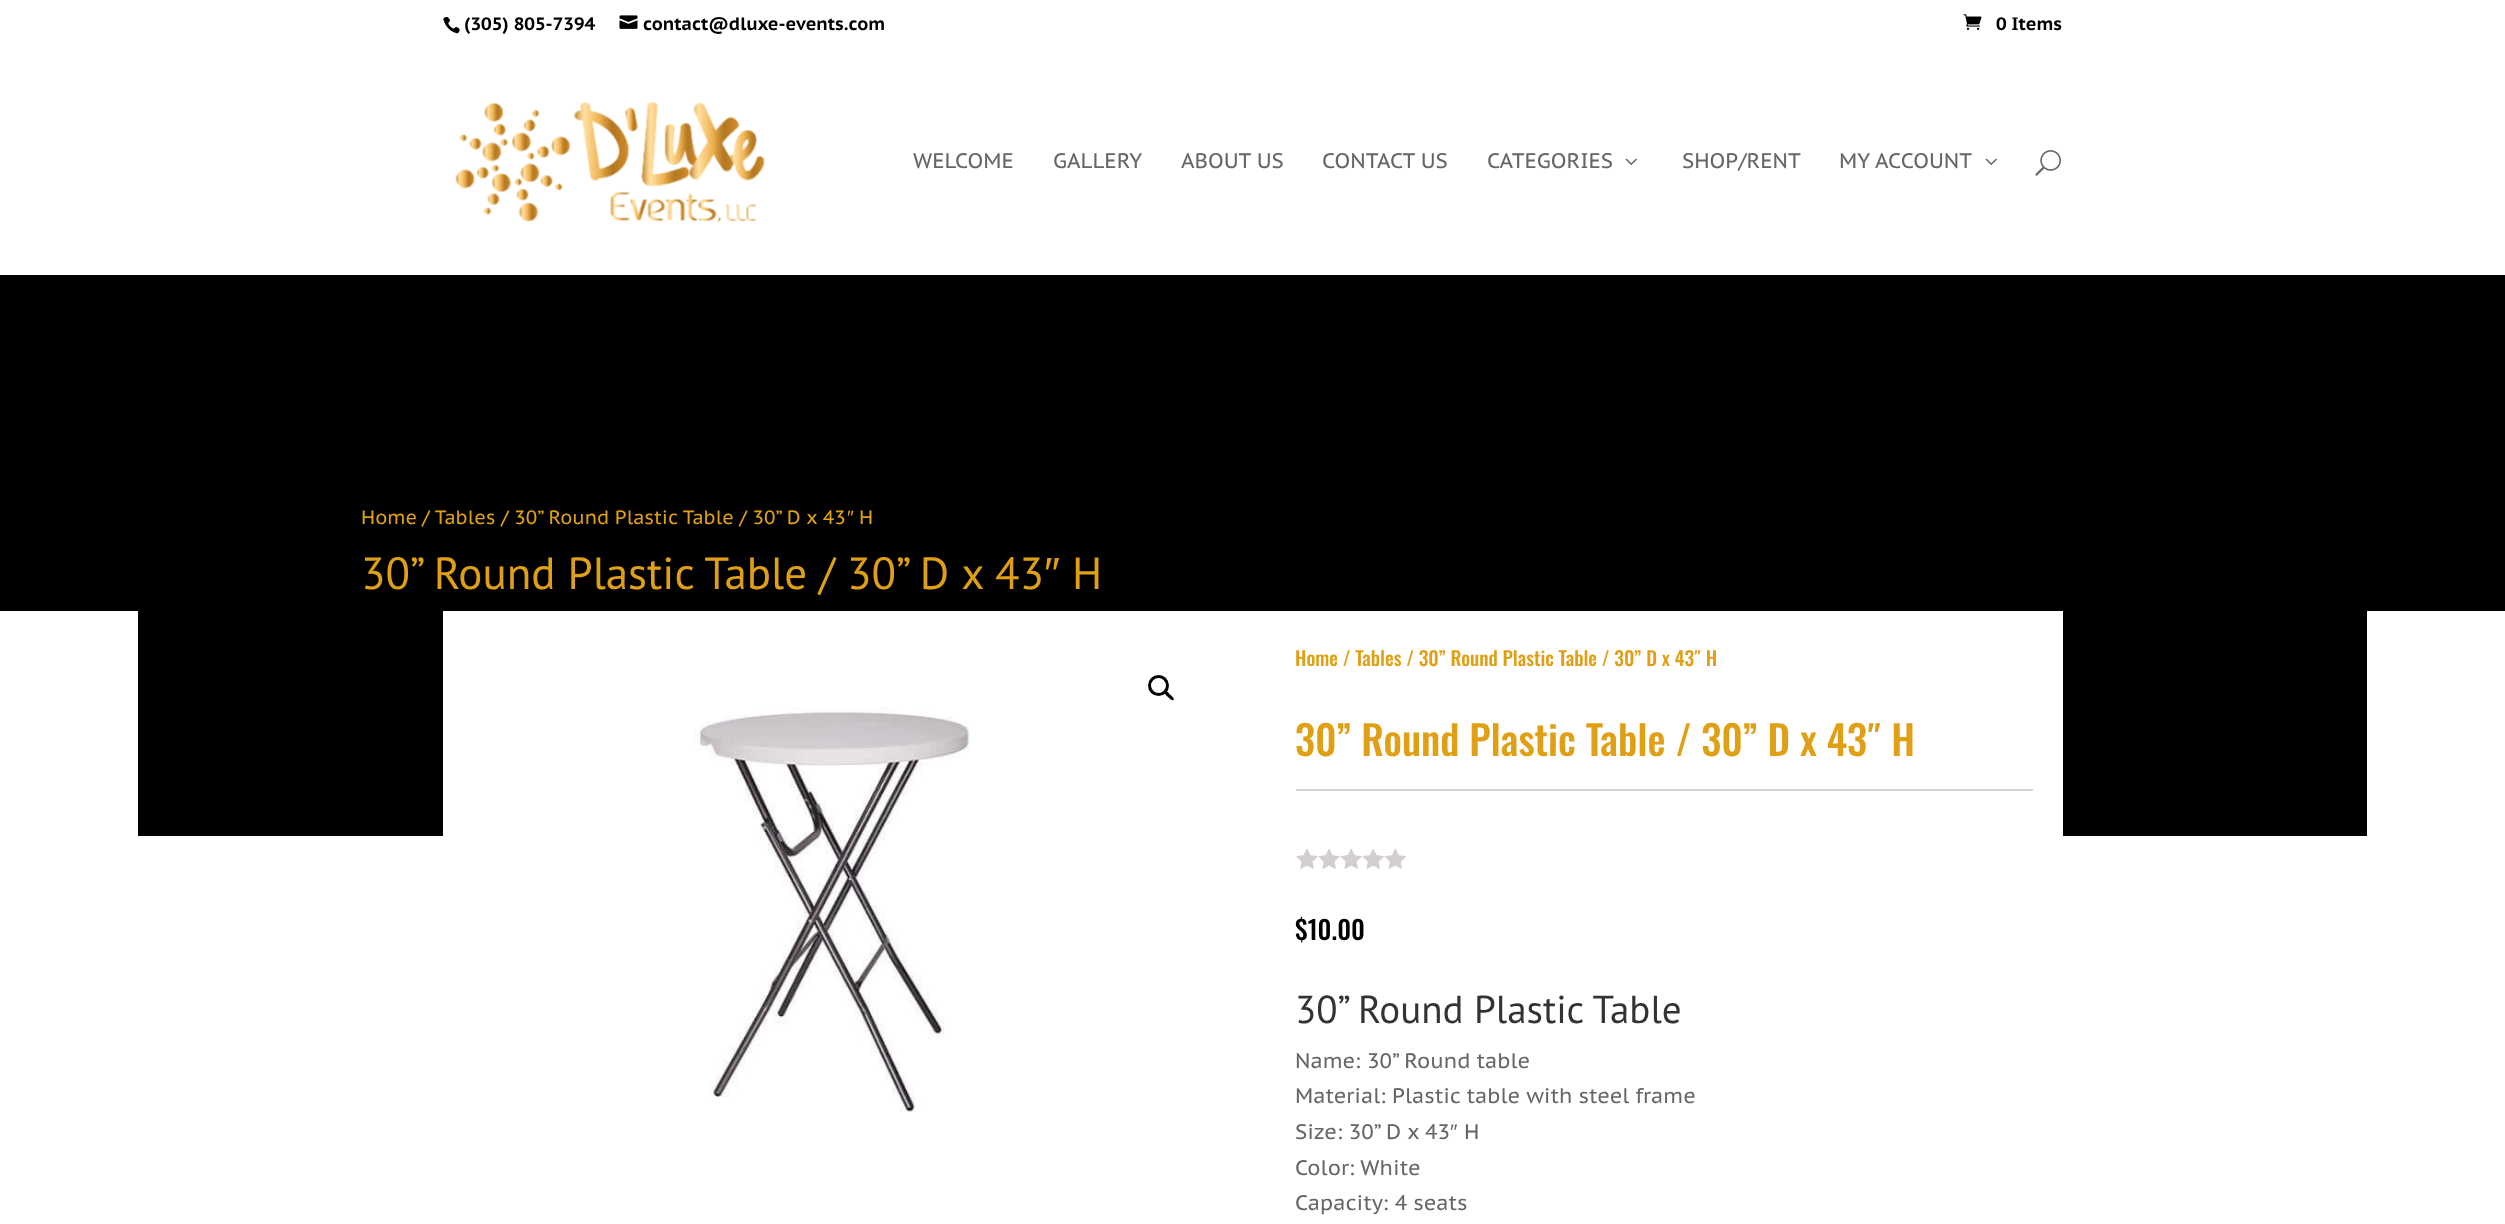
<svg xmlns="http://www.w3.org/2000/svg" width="2505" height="1224">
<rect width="100%" height="100%" fill="#fff"/>
<image x="443" y="16" width="17" height="18" href="media/1.png"/>
<text x="464" y="30" style="font-family:PT Sans Caption;font-size:18px;font-weight:bold;fill:#000">(305) 805-7394</text>
<image x="619" y="15" width="19" height="14" href="media/2.png"/>
<text x="643" y="30" style="font-family:PT Sans Caption;font-size:18px;font-weight:bold;fill:#000">contact@dluxe-events.com</text>
<image x="1963" y="14" width="19" height="16" href="media/3.png"/>
<text x="1996" y="30" style="font-family:PT Sans Caption;font-size:18px;font-weight:bold;fill:#000">0 Items</text>
<image x="455" y="101" width="310" height="122" href="media/4.png"/>
<text x="913" y="168" style="font-family:PT Sans Caption;font-size:21px;fill:#666">WELCOME</text>
<text x="1053" y="168" style="font-family:PT Sans Caption;font-size:21px;fill:#666">GALLERY</text>
<text x="1181" y="168" style="font-family:PT Sans Caption;font-size:21px;fill:#666">ABOUT US</text>
<text x="1322" y="168" style="font-family:PT Sans Caption;font-size:21px;fill:#666">CONTACT US</text>
<text x="1487" y="168" style="font-family:PT Sans Caption;font-size:21px;fill:#666">CATEGORIES</text>
<image x="1625" y="158" width="12" height="7" href="media/5.png"/>
<text x="1682" y="168" style="font-family:PT Sans Caption;font-size:21px;fill:#666">SHOP/RENT</text>
<text x="1839" y="168" style="font-family:PT Sans Caption;font-size:21px;fill:#666">MY ACCOUNT</text>
<image x="1985" y="158" width="12" height="7" href="media/5.png"/>
<image x="2035" y="150" width="26" height="26" href="media/6.png"/>
<rect y="275" width="2505" height="336" fill="#000"/>
<rect x="138" y="611" width="2229" height="225" fill="#000"/>
<text x="361" y="524" style="font-family:PT Sans Caption;font-size:19.3px;fill:#e0a016">Home</text>
<text x="422" y="524" style="font-family:PT Sans Caption;font-size:19.3px;fill:#e0a016">/ Tables / 30” Round Plastic Table / 30” D x 43</text>
<text x="847" y="524" style="font-family:Liberation Sans;font-size:19.3px;fill:#e0a016">″</text>
<text x="859" y="524" style="font-family:PT Sans Caption;font-size:19.3px;fill:#e0a016">H</text>
<text x="361" y="589" style="font-family:PT Sans;font-size:45px;fill:#e0a016">30” Round Plastic Table / 30” D x 43</text>
<text x="1044" y="589" style="font-family:Liberation Sans;font-size:45px;fill:#e0a016">″</text>
<text x="1072" y="589" style="font-family:PT Sans;font-size:45px;fill:#e0a016">H</text>
<rect x="443" y="611" width="1620" height="225" fill="#fff"/>
<circle cx="1158.5" cy="685.5" r="9" fill="none" stroke="#000" stroke-width="3"/>
<path d="M1165 691.5c1.5-2 4 2 5 3c1 1 5 3.5 3.5 5.5c-2 1.5-4.5-2.5-5.5-3c-1-1-5-4-3-5.5z" fill="#000"/>
<image x="694" y="707" width="276" height="405" href="media/7.png"/>
<text x="1295" y="666" style="font-family:Oswald;font-size:19.5px;font-weight:500;fill:#e0a016">Home / Tables / 30” Round Plastic Table / 30” D x 43″ H</text>
<text x="1295" y="756" style="font-family:Oswald;font-size:40.5px;font-weight:500;fill:#e0a016">30” Round Plastic Table / 30” D x 43″ H</text>
<rect x="1296" y="789" width="737" height="2" fill="#d3d3d3"/>
<image x="1296" y="848" width="110" height="21" href="media/8.png"/>
<text x="1295" y="940" style="font-family:Oswald;font-size:26px;font-weight:500;fill:#000">$10.00</text>
<text x="1295" y="1023" style="font-family:PT Sans;font-size:39px;fill:#333">30” Round Plastic Table</text>
<text x="1295" y="1068" style="font-family:PT Sans Caption;font-size:21px;fill:#666">Name: 30” Round table</text>
<text x="1295" y="1103" style="font-family:PT Sans Caption;font-size:21px;fill:#666">Material: Plastic table with steel frame</text>
<text x="1295" y="1139" style="font-family:PT Sans Caption;font-size:21px;fill:#666">Size: 30” D x 43</text>
<text x="1450" y="1139" style="font-family:Liberation Sans;font-size:21px;fill:#666">″</text>
<text x="1464" y="1139" style="font-family:PT Sans Caption;font-size:21px;fill:#666">H</text>
<text x="1295" y="1175" style="font-family:PT Sans Caption;font-size:21px;fill:#666">Color: White</text>
<text x="1295" y="1210" style="font-family:PT Sans Caption;font-size:21px;fill:#666">Capacity: 4 seats</text>
</svg>
